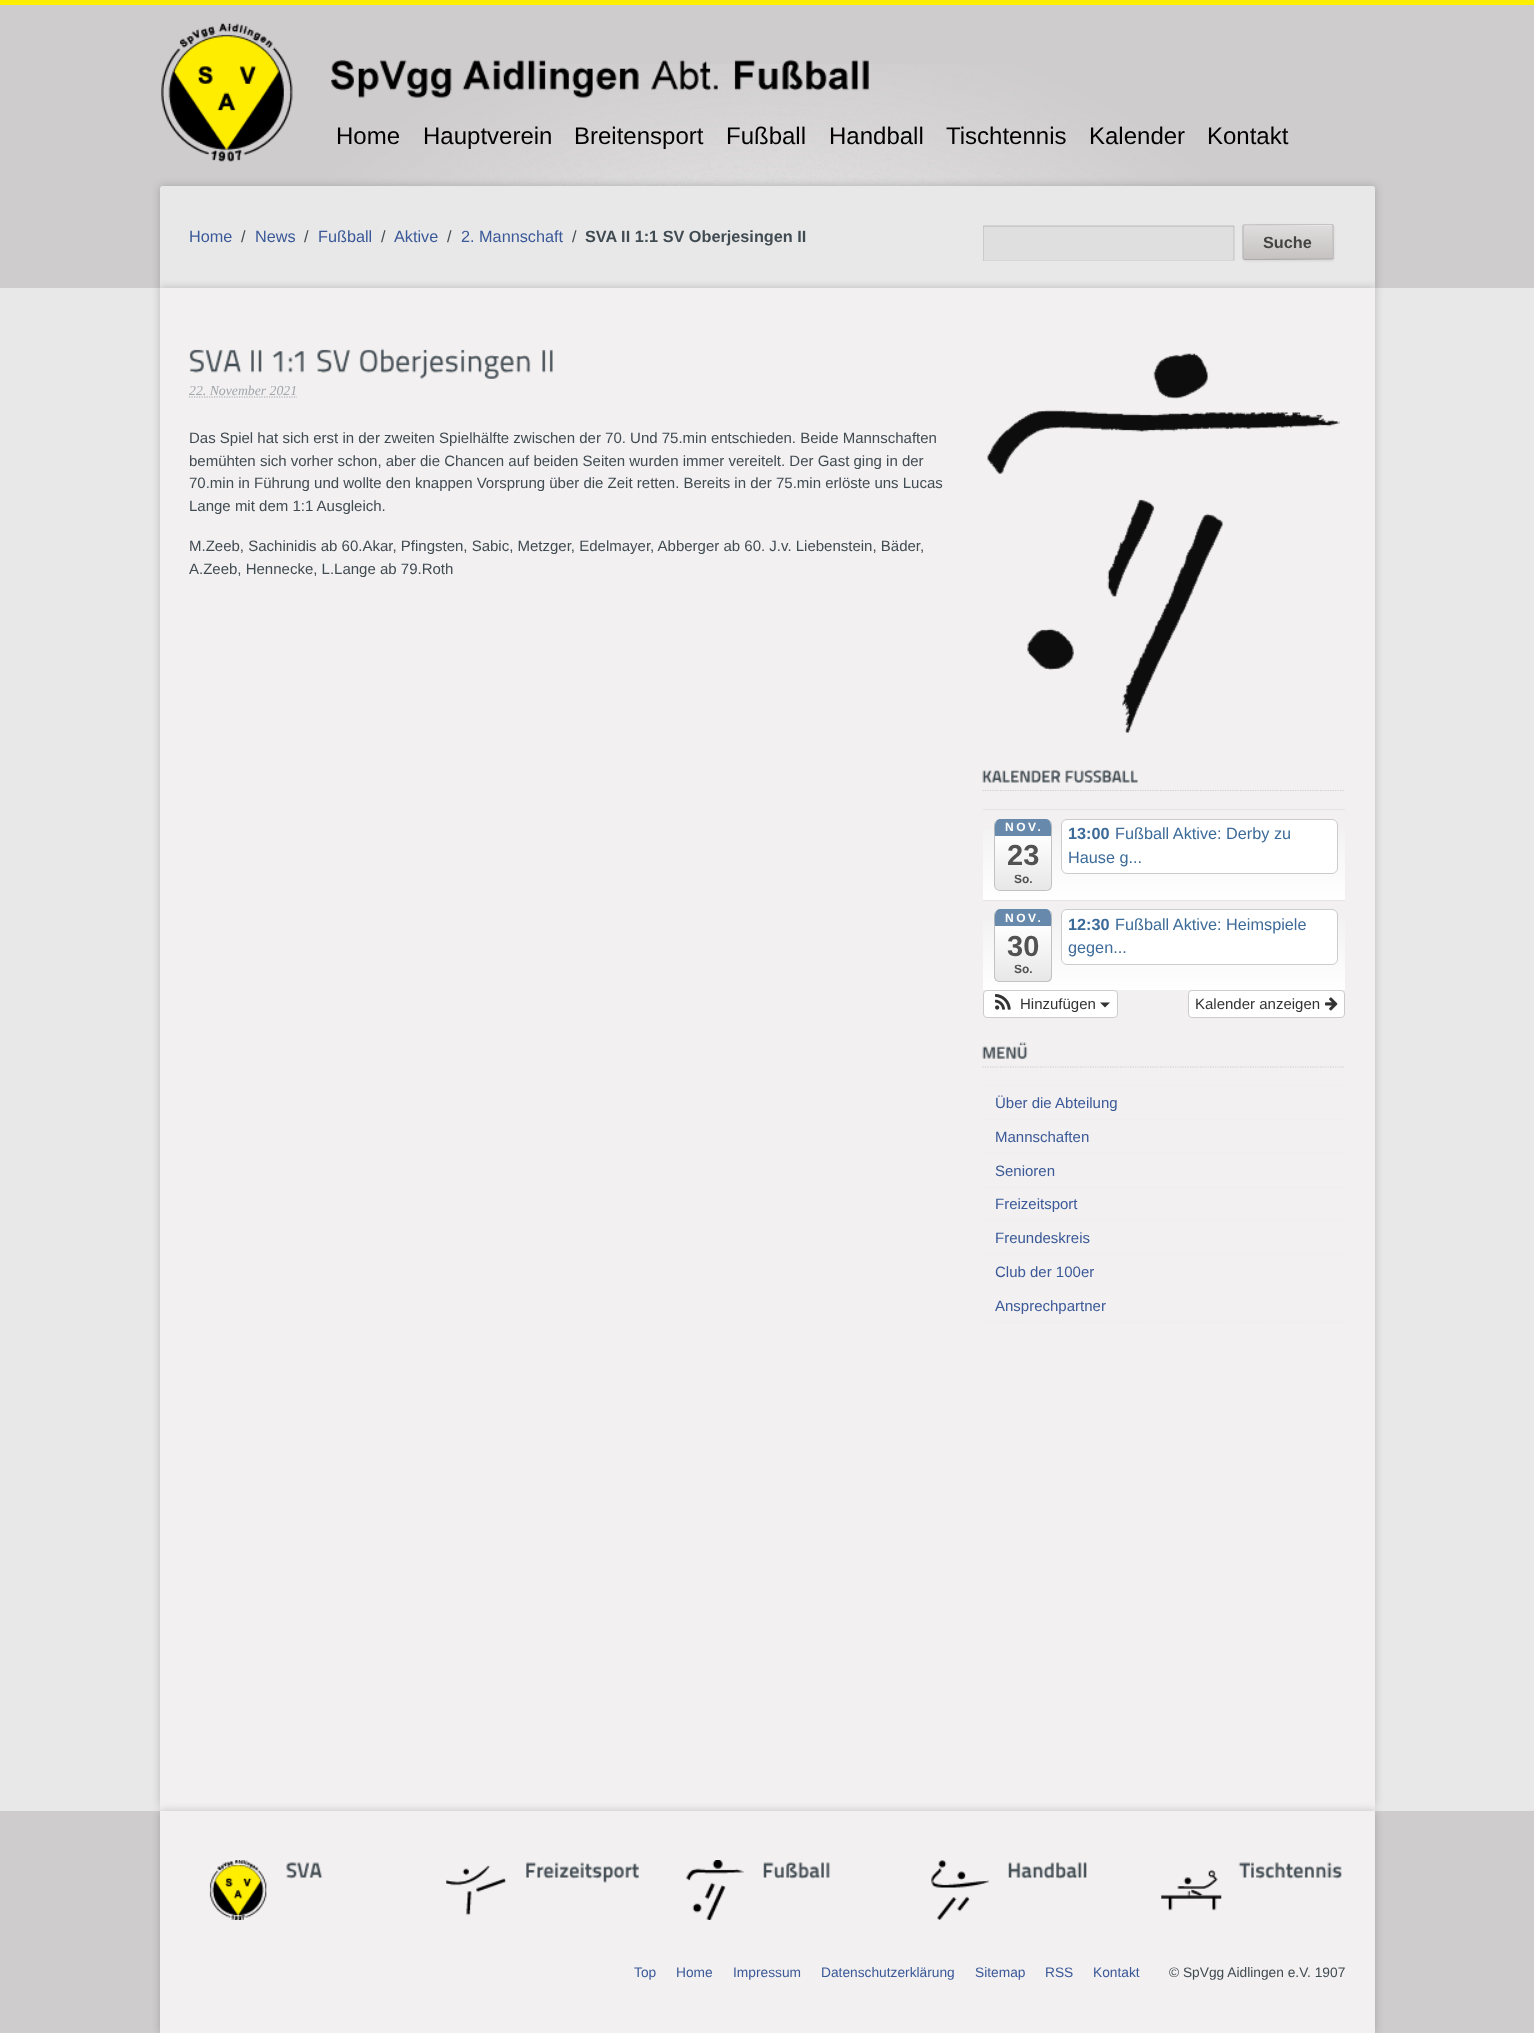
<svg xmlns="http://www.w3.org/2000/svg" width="1534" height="2033">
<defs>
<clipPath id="clip1"><rect x="1243" y="224" width="91" height="36" rx="2.5"/></clipPath>
<linearGradient id="g1" gradientUnits="userSpaceOnUse" x1="1288" y1="191" x2="1288" y2="225"><stop offset="0" stop-color="#dfdddd"/><stop offset="1" stop-color="#c6c2c2"/></linearGradient>
<linearGradient id="g2" gradientUnits="userSpaceOnUse" x1="1288" y1="225" x2="1288" y2="259"><stop offset="0" stop-color="#dfdddd"/><stop offset="1" stop-color="#c6c2c2"/></linearGradient>
<linearGradient id="g3" gradientUnits="userSpaceOnUse" x1="1288" y1="259" x2="1288" y2="293"><stop offset="0" stop-color="#dfdddd"/><stop offset="1" stop-color="#c6c2c2"/></linearGradient>
<linearGradient id="g4" gradientUnits="userSpaceOnUse" x1="1164" y1="810" x2="1164" y2="900"><stop offset="0" stop-color="#f2f2f2"/><stop offset="0.18" stop-color="#f2f2f2"/><stop offset="1" stop-color="#fff"/></linearGradient>
<clipPath id="clip2"><rect x="994" y="819" width="59" height="72" rx="6"/></clipPath>
<linearGradient id="g5" gradientUnits="userSpaceOnUse" x1="1023" y1="819" x2="1023" y2="890"><stop offset="0" stop-color="#fff"/><stop offset="0.21" stop-color="#fff"/><stop offset="1" stop-color="#e7e7e7"/></linearGradient>
<linearGradient id="g6" gradientUnits="userSpaceOnUse" x1="1164" y1="901" x2="1164" y2="990"><stop offset="0" stop-color="#f2f2f2"/><stop offset="0.18" stop-color="#f2f2f2"/><stop offset="1" stop-color="#fff"/></linearGradient>
<clipPath id="clip3"><rect x="994" y="909" width="59" height="74" rx="6"/></clipPath>
<linearGradient id="g7" gradientUnits="userSpaceOnUse" x1="1023" y1="909" x2="1023" y2="981"><stop offset="0" stop-color="#fff"/><stop offset="0.2" stop-color="#fff"/><stop offset="1" stop-color="#e7e7e7"/></linearGradient>
</defs>
<rect width="100%" height="100%" fill="#e8e8e8"/>
<rect width="1534" height="5" fill="#fe0"/>
<rect y="5" width="1534" height="283" fill="#cecccc"/>
<image x="322" y="64" width="892" height="122" href="media/1.png"/>
<image x="161" y="23" width="708" height="139" href="media/2.png"/>
<text x="336" y="144" style="font-family:Liberation Sans;font-size:24px;fill:#000">Home</text>
<text x="423" y="144" style="font-family:Liberation Sans;font-size:24px;fill:#000">Hauptverein</text>
<text x="574" y="144" style="font-family:Liberation Sans;font-size:24px;fill:#000">Breitensport</text>
<text x="726" y="144" style="font-family:Liberation Sans;font-size:24px;fill:#000">Fußball</text>
<text x="829" y="144" style="font-family:Liberation Sans;font-size:24px;fill:#000">Handball</text>
<text x="946" y="144" style="font-family:Liberation Sans;font-size:24px;fill:#000">Tischtennis</text>
<text x="1089" y="144" style="font-family:Liberation Sans;font-size:24px;fill:#000">Kalender</text>
<text x="1207" y="144" style="font-family:Liberation Sans;font-size:24px;fill:#000">Kontakt</text>
<rect x="160" y="186" width="1215" height="102" rx="2.5" fill="#00000033" filter="blur(4px)"/>
<path d="M162.5 186h1210c1.5 0 2.5 1 2.5 2.5v99.5h-1215v-99.5c0-1.5 1-2.5 2.5-2.5z" fill="#e8e8e8"/>
<text x="189" y="242" style="font-family:Liberation Sans;font-size:16.25px;fill:#3b5998">Home</text>
<text x="241" y="242" style="font-family:Liberation Sans;font-size:16.25px;fill:#414b52">/</text>
<text x="255" y="242" style="font-family:Liberation Sans;font-size:16.25px;fill:#3b5998">News</text>
<text x="304" y="242" style="font-family:Liberation Sans;font-size:16.25px;fill:#414b52">/</text>
<text x="318" y="242" style="font-family:Liberation Sans;font-size:16.25px;fill:#3b5998">Fußball</text>
<text x="381" y="242" style="font-family:Liberation Sans;font-size:16.25px;fill:#414b52">/</text>
<text x="394" y="242" style="font-family:Liberation Sans;font-size:16.25px;fill:#3b5998">Aktive</text>
<text x="447" y="242" style="font-family:Liberation Sans;font-size:16.25px;fill:#414b52">/</text>
<text x="461" y="242" style="font-family:Liberation Sans;font-size:16.25px;fill:#3b5998">2. Mannschaft</text>
<text x="572" y="242" style="font-family:Liberation Sans;font-size:16.25px;fill:#414b52">/</text>
<text x="585" y="242" style="font-family:Liberation Sans;font-size:16.25px;font-weight:bold;fill:#414b52">SVA II 1:1 SV Oberjesingen II</text>
<rect x="984" y="226" width="250" height="34" fill="#dfdfdf"/>
<path d="M983.5 226h250.5" fill="none" stroke="#00000030" stroke-width="1.2"/>
<path d="M1234 226v34.5" fill="none" stroke="#00000021" stroke-width="1.2"/>
<rect x="984" y="260" width="250" height="1" fill="#00000012"/>
<rect x="983" y="226" width="1" height="35" fill="#00000021"/>
<rect x="1243" y="225" width="91" height="36" rx="2.5" fill="#00000014" filter="blur(1px)"/>
<g clip-path="url(#clip1)">
<rect x="1243" y="224" width="91" height="1" fill="url(#g1)"/>
<rect x="1243" y="225" width="91" height="34" fill="url(#g2)"/>
<rect x="1243" y="259" width="91" height="1" fill="url(#g3)"/>
</g>
<path d="M1245 226h86l1 1v32c2 0 1-4 1-6v-16c0-16 3-12-15-12h-58c-2 0-16-4-16 2z" fill="#ffffff4d"/>
<path d="M1243.5 225l73.5-.5h14l1.5 .5" fill="none" stroke="#c5c3c3" stroke-width="1.2"/>
<path d="M1332.5 225l.5 1v31.5l-.5 1.5" fill="none" stroke="#bab8b8" stroke-width="1.2"/>
<path d="M1332.5 259l-73 .5h-14.5l-1.5-.5" fill="none" stroke="#aeaaaa" stroke-width="1.2"/>
<path d="M1243.5 259l-.5-1.5v-31.5l.5-1" fill="none" stroke="#bab8b8" stroke-width="1.2"/>
<text x="1263" y="248" style="font-family:Liberation Sans;font-size:16.25px;font-weight:bold;fill:#444343">Suche</text>
<rect x="160" y="288" width="1215" height="1517" fill="#00000033" filter="blur(4px)"/>
<rect x="160" y="288" width="1215" height="1523" fill="#f2f0f0"/>
<image x="189" y="349" width="53" height="24" href="media/3.png"/>
<image x="251" y="349" width="11" height="24" href="media/4.png"/>
<image x="272" y="351" width="32" height="22" href="media/5.png"/>
<image x="317" y="349" width="34" height="24" href="media/6.png"/>
<image x="359" y="348" width="172" height="31" href="media/7.png"/>
<image x="542" y="349" width="11" height="24" href="media/8.png"/>
<text x="189" y="395" style="font-family:Liberation Serif;font-size:13.75px;font-style:italic;fill:#a0a5a9">22. November 2021</text>
<path d="M189 397h108" fill="none" stroke="#a0a5a9" stroke-width="1.2" stroke-dasharray="1.25 1.25"/>
<text x="189" y="443" style="font-family:Liberation Sans;font-size:15px;fill:#414b52">Das Spiel hat sich erst in der zweiten Spielhälfte zwischen der 70. Und 75.min entschieden. Beide Mannschaften</text>
<text x="189" y="466" style="font-family:Liberation Sans;font-size:15px;fill:#414b52">bemühten sich vorher schon, aber die Chancen auf beiden Seiten wurden immer vereitelt. Der Gast ging in der</text>
<text x="189" y="488" style="font-family:Liberation Sans;font-size:15px;fill:#414b52">70.min in Führung und wollte den knappen Vorsprung über die Zeit retten. Bereits in der 75.min erlöste uns Lucas</text>
<text x="189" y="511" style="font-family:Liberation Sans;font-size:15px;fill:#414b52">Lange mit dem 1:1 Ausgleich.</text>
<text x="189" y="551" style="font-family:Liberation Sans;font-size:15px;fill:#414b52">M.Zeeb, Sachinidis ab 60.Akar, Pfingsten, Sabic, Metzger, Edelmayer, Abberger ab 60. J.v. Liebenstein, Bäder,</text>
<text x="189" y="574" style="font-family:Liberation Sans;font-size:15px;fill:#414b52">A.Zeeb, Hennecke, L.Lange ab 79.Roth</text>
<image x="987" y="353" width="354" height="380" href="media/9.png"/>
<path d="M982.5 790.5h362.5" fill="none" stroke="#cecccc" stroke-width="1.2" stroke-dasharray="1.25 1.25"/>
<image x="982" y="769" width="79" height="14" href="media/10.png"/>
<image x="1065" y="769" width="73" height="14" href="media/11.png"/>
<rect x="983" y="829" width="362" height="71" fill="url(#g4)"/>
<rect x="983" y="809" width="362" height="1" fill="#e5e5e5"/>
<g clip-path="url(#clip2)">
<rect x="995" y="819" width="56" height="71" fill="url(#g5)"/>
</g>
<path d="M1000 819h46c4 0 6 3 6 6v60c0 3-2 6-6 6h-46c-3 0-6-3-6-6v-60c0-3 3-6 6-6zm0 0h46c3 0 5 3 5 6v60c0 3-2 5-5 5h-46c-3 0-5-2-5-5v-60c0-3 2-6 5-6z" fill="#c2c2c2" fill-rule="evenodd"/>
<path d="M1000 819c-7 0-5 13-5 17h56c0-4 2-17-5-17z" fill="#6689ac"/>
<text x="1005" y="831" style="font-family:Liberation Sans;font-size:12px;font-weight:bold;letter-spacing:2.5px;fill:#fff">NOV.</text>
<text x="1007" y="865" style="font-family:Liberation Sans;font-size:29px;font-weight:bold;fill:#525252">23</text>
<text x="1014" y="883" style="font-family:Liberation Sans;font-size:12px;font-weight:bold;fill:#525252">So.</text>
<rect x="1061.5" y="819.5" width="276" height="54" rx="5.5" fill="#fff" stroke="#ccc"/>
<text x="1068" y="839" style="font-family:Liberation Sans;font-size:16.25px;font-weight:bold;fill:#3d6b99">13:00</text>
<text x="1115" y="839" style="font-family:Liberation Sans;font-size:16.25px;fill:#3d6b99">Fußball Aktive: Derby zu</text>
<text x="1068" y="863" style="font-family:Liberation Sans;font-size:16.25px;fill:#3d6b99">Hause g...</text>
<rect x="983" y="920" width="362" height="70" fill="url(#g6)"/>
<rect x="983" y="900" width="362" height="1" fill="#e5e5e5"/>
<g clip-path="url(#clip3)">
<rect x="995" y="909" width="56" height="72" fill="url(#g7)"/>
</g>
<path d="M1000 909h46c4 0 6 3 6 6v61c0 4-2 6-6 6h-46c-3 0-6-2-6-6v-61c0-3 3-6 6-6zm0 0h46c3 0 5 3 5 6v61c0 3-2 5-5 5h-46c-3 0-5-2-5-5v-61c0-3 2-6 5-6z" fill="#c2c2c2" fill-rule="evenodd"/>
<path d="M1000 909c-7 0-5 13-5 17h56c0-4 2-17-5-17z" fill="#6689ac"/>
<text x="1005" y="922" style="font-family:Liberation Sans;font-size:12px;font-weight:bold;letter-spacing:2.5px;fill:#fff">NOV.</text>
<text x="1007" y="956" style="font-family:Liberation Sans;font-size:29px;font-weight:bold;fill:#525252">30</text>
<text x="1014" y="973" style="font-family:Liberation Sans;font-size:12px;font-weight:bold;fill:#525252">So.</text>
<rect x="1061.5" y="909.5" width="276" height="55" rx="5.5" fill="#fff" stroke="#ccc"/>
<text x="1068" y="930" style="font-family:Liberation Sans;font-size:16.25px;font-weight:bold;fill:#3d6b99">12:30</text>
<text x="1115" y="930" style="font-family:Liberation Sans;font-size:16.25px;fill:#3d6b99">Fußball Aktive: Heimspiele</text>
<text x="1068" y="953" style="font-family:Liberation Sans;font-size:16.25px;fill:#3d6b99">gegen...</text>
<rect x="983.5" y="990.5" width="134" height="27" rx="3.5" fill="#fff" stroke="#ccc"/>
<image x="995" y="994" width="16" height="16" href="media/12.png"/>
<text x="1020" y="1009" style="font-family:Liberation Sans;font-size:15px;fill:#333">Hinzufügen</text>
<path d="M1100 1002.5h10l-5 5z" fill="#333"/>
<rect x="1188.5" y="990.5" width="156" height="27" rx="3.5" fill="#fff" stroke="#ccc"/>
<text x="1195" y="1009" style="font-family:Liberation Sans;font-size:15px;fill:#333">Kalender anzeigen</text>
<image x="1325" y="997" width="13" height="14" href="media/13.png"/>
<path d="M982.5 1067h362.5" fill="none" stroke="#cecccc" stroke-width="1.2" stroke-dasharray="1.25 1.25"/>
<image x="982" y="1042" width="46" height="17" href="media/14.png"/>
<path d="M982.5 1322h362.5" fill="none" stroke="#ededed" stroke-width="1.2" stroke-dasharray="1.25 1.25"/>
<path d="M982.5 1085.5h362.5" fill="none" stroke="#ededed" stroke-width="1.2" stroke-dasharray="1.25 1.25"/>
<text x="995" y="1108" style="font-family:Liberation Sans;font-size:15px;fill:#3b5998">Über die Abteilung</text>
<path d="M982.5 1119.5h362.5" fill="none" stroke="#ededed" stroke-width="1.2" stroke-dasharray="1.25 1.25"/>
<text x="995" y="1142" style="font-family:Liberation Sans;font-size:15px;fill:#3b5998">Mannschaften</text>
<path d="M982.5 1153h362.5" fill="none" stroke="#ededed" stroke-width="1.2" stroke-dasharray="1.25 1.25"/>
<text x="995" y="1176" style="font-family:Liberation Sans;font-size:15px;fill:#3b5998">Senioren</text>
<path d="M982.5 1187h362.5" fill="none" stroke="#ededed" stroke-width="1.2" stroke-dasharray="1.25 1.25"/>
<text x="995" y="1209" style="font-family:Liberation Sans;font-size:15px;fill:#3b5998">Freizeitsport</text>
<path d="M982.5 1220.5h362.5" fill="none" stroke="#ededed" stroke-width="1.2" stroke-dasharray="1.25 1.25"/>
<text x="995" y="1243" style="font-family:Liberation Sans;font-size:15px;fill:#3b5998">Freundeskreis</text>
<path d="M982.5 1254.5h362.5" fill="none" stroke="#ededed" stroke-width="1.2" stroke-dasharray="1.25 1.25"/>
<text x="995" y="1277" style="font-family:Liberation Sans;font-size:15px;fill:#3b5998">Club der 100er</text>
<path d="M982.5 1288h362.5" fill="none" stroke="#ededed" stroke-width="1.2" stroke-dasharray="1.25 1.25"/>
<text x="995" y="1311" style="font-family:Liberation Sans;font-size:15px;fill:#3b5998">Ansprechpartner</text>
<rect y="1811" width="1534" height="222" fill="#cecccd"/>
<rect x="160" y="1811" width="1215" height="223" fill="#00000033" filter="blur(4px)"/>
<rect x="160" y="1811" width="1215" height="222" fill="#f2f0f0"/>
<image x="209" y="1860" width="58" height="60" href="media/15.png"/>
<image x="286" y="1862" width="37" height="17" href="media/16.png"/>
<image x="446" y="1865" width="61" height="51" href="media/17.png"/>
<image x="526" y="1862" width="113" height="21" href="media/18.png"/>
<image x="686" y="1860" width="58" height="60" href="media/19.png"/>
<image x="763" y="1862" width="68" height="17" href="media/20.png"/>
<image x="931" y="1860" width="58" height="60" href="media/21.png"/>
<image x="1008" y="1862" width="79" height="17" href="media/22.png"/>
<image x="1161" y="1869" width="61" height="42" href="media/23.png"/>
<image x="1238" y="1862" width="104" height="17" href="media/24.png"/>
<text x="634" y="1977" style="font-family:Liberation Sans;font-size:13.75px;fill:#3b5998">Top</text>
<text x="676" y="1977" style="font-family:Liberation Sans;font-size:13.75px;fill:#3b5998">Home</text>
<text x="733" y="1977" style="font-family:Liberation Sans;font-size:13.75px;fill:#3b5998">Impressum</text>
<text x="821" y="1977" style="font-family:Liberation Sans;font-size:13.75px;fill:#3b5998">Datenschutzerklärung</text>
<text x="975" y="1977" style="font-family:Liberation Sans;font-size:13.75px;fill:#3b5998">Sitemap</text>
<text x="1045" y="1977" style="font-family:Liberation Sans;font-size:13.75px;fill:#3b5998">RSS</text>
<text x="1093" y="1977" style="font-family:Liberation Sans;font-size:13.75px;fill:#3b5998">Kontakt</text>
<text x="1169" y="1977" style="font-family:Liberation Sans;font-size:13.75px;fill:#414b52">© SpVgg Aidlingen e.V. 1907</text>
</svg>
